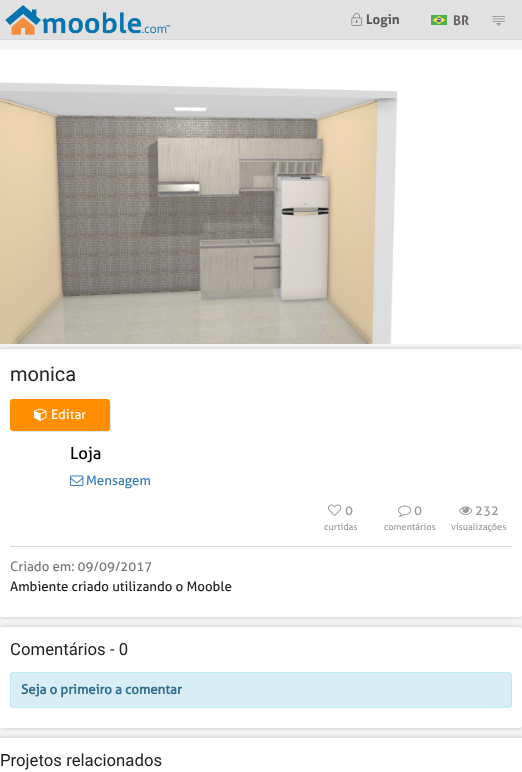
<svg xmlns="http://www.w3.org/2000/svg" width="522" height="772">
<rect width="100%" height="100%" fill="#f5f5f5"/>
<rect width="522" height="39" fill="#e1e1e1"/>
<rect y="39" width="522" height="1" fill="#d8d8d8"/>
<image x="5" y="5" width="165" height="30" href="media/1.png"/>
<image x="351" y="13" width="11" height="13" href="media/2.png"/>
<text x="366" y="24" style="font-family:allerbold;font-size:13.3px;font-weight:bold;fill:#555">Login</text>
<image x="431" y="15" width="16" height="10" href="media/3.png"/>
<text x="453" y="25" style="font-family:allerbold;font-size:13.3px;font-weight:bold;fill:#666">BR</text>
<image x="492" y="16" width="13" height="10" href="media/4.png"/>
<rect y="349" width="522" height="268" rx="2" fill="#00000033" filter="blur(2.5px)"/>
<image x="0" y="50" width="522" height="294" href="media/5.png"/>
<rect y="349" width="522" height="268" rx="2" fill="#fff"/>
<text x="10" y="381" style="font-family:Roboto;font-size:20px;fill:#222">monica</text>
<path d="M11 431c1 0 2 1 3 1h94c2 0 3-1 3-3v-26c0-1-1-2-1-3v2v26c0 2-1 3-3 3h-94z" fill="#e6e6e6"/>
<rect x="10" y="399" width="100" height="32" rx="3" fill="#ff8e00"/>
<image x="34" y="408" width="13" height="13" href="media/6.png"/>
<text x="51" y="419" style="font-family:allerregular;font-size:13.3px;fill:#fff">Editar</text>
<text x="70" y="459" style="font-family:allerregular;font-size:16.75px;fill:#000">Loja</text>
<image x="70" y="475" width="14" height="11" href="media/7.png"/>
<text x="86" y="485" style="font-family:allerregular;font-size:13.3px;fill:#337ab7">Mensagem</text>
<image x="328" y="504" width="14" height="12" href="media/8.png"/>
<text x="345" y="515" style="font-family:allerregular;font-size:13.3px;fill:#999">0</text>
<text x="324" y="530" style="font-family:allerregular;font-size:9.25px;fill:#999">curtidas</text>
<image x="398" y="505" width="14" height="12" href="media/9.png"/>
<text x="414" y="515" style="font-family:allerregular;font-size:13.3px;fill:#999">0</text>
<text x="384" y="530" style="font-family:allerregular;font-size:9.25px;fill:#999">comentários</text>
<image x="459" y="506" width="14" height="9" href="media/10.png"/>
<text x="475" y="515" style="font-family:allerregular;font-size:13.3px;fill:#999">232</text>
<text x="451" y="530" style="font-family:allerregular;font-size:9.25px;fill:#999">visualizações</text>
<rect x="10" y="546" width="502" height="1" fill="#d8d8d8"/>
<text x="10" y="571" style="font-family:allerregular;font-size:13.3px;fill:#777">Criado em: 09/09/2017</text>
<text x="10" y="591" style="font-family:allerregular;font-size:13.3px;fill:#222">Ambiente criado utilizando o Mooble</text>
<rect y="627" width="522" height="101" rx="2" fill="#00000033" filter="blur(2.5px)"/>
<rect y="627" width="522" height="101" rx="2" fill="#fff"/>
<text x="10" y="655" style="font-family:Roboto;font-size:16.75px;fill:#222">Comentários - 0</text>
<rect x="10.5" y="672.5" width="501" height="35" rx="2.5" fill="#d9edf7" stroke="#bce8f1"/>
<text x="21" y="694" style="font-family:allerregular;font-size:13.3px;font-weight:bold;fill:#31708f">Seja o primeiro a comentar</text>
<rect x="-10" y="738" width="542" height="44" rx="2" fill="#00000033" filter="blur(2.5px)"/>
<rect y="738" width="522" height="34" fill="#fff"/>
<text x="0" y="766" style="font-family:Roboto;font-size:16.75px;fill:#222">Projetos relacionados</text>
</svg>
